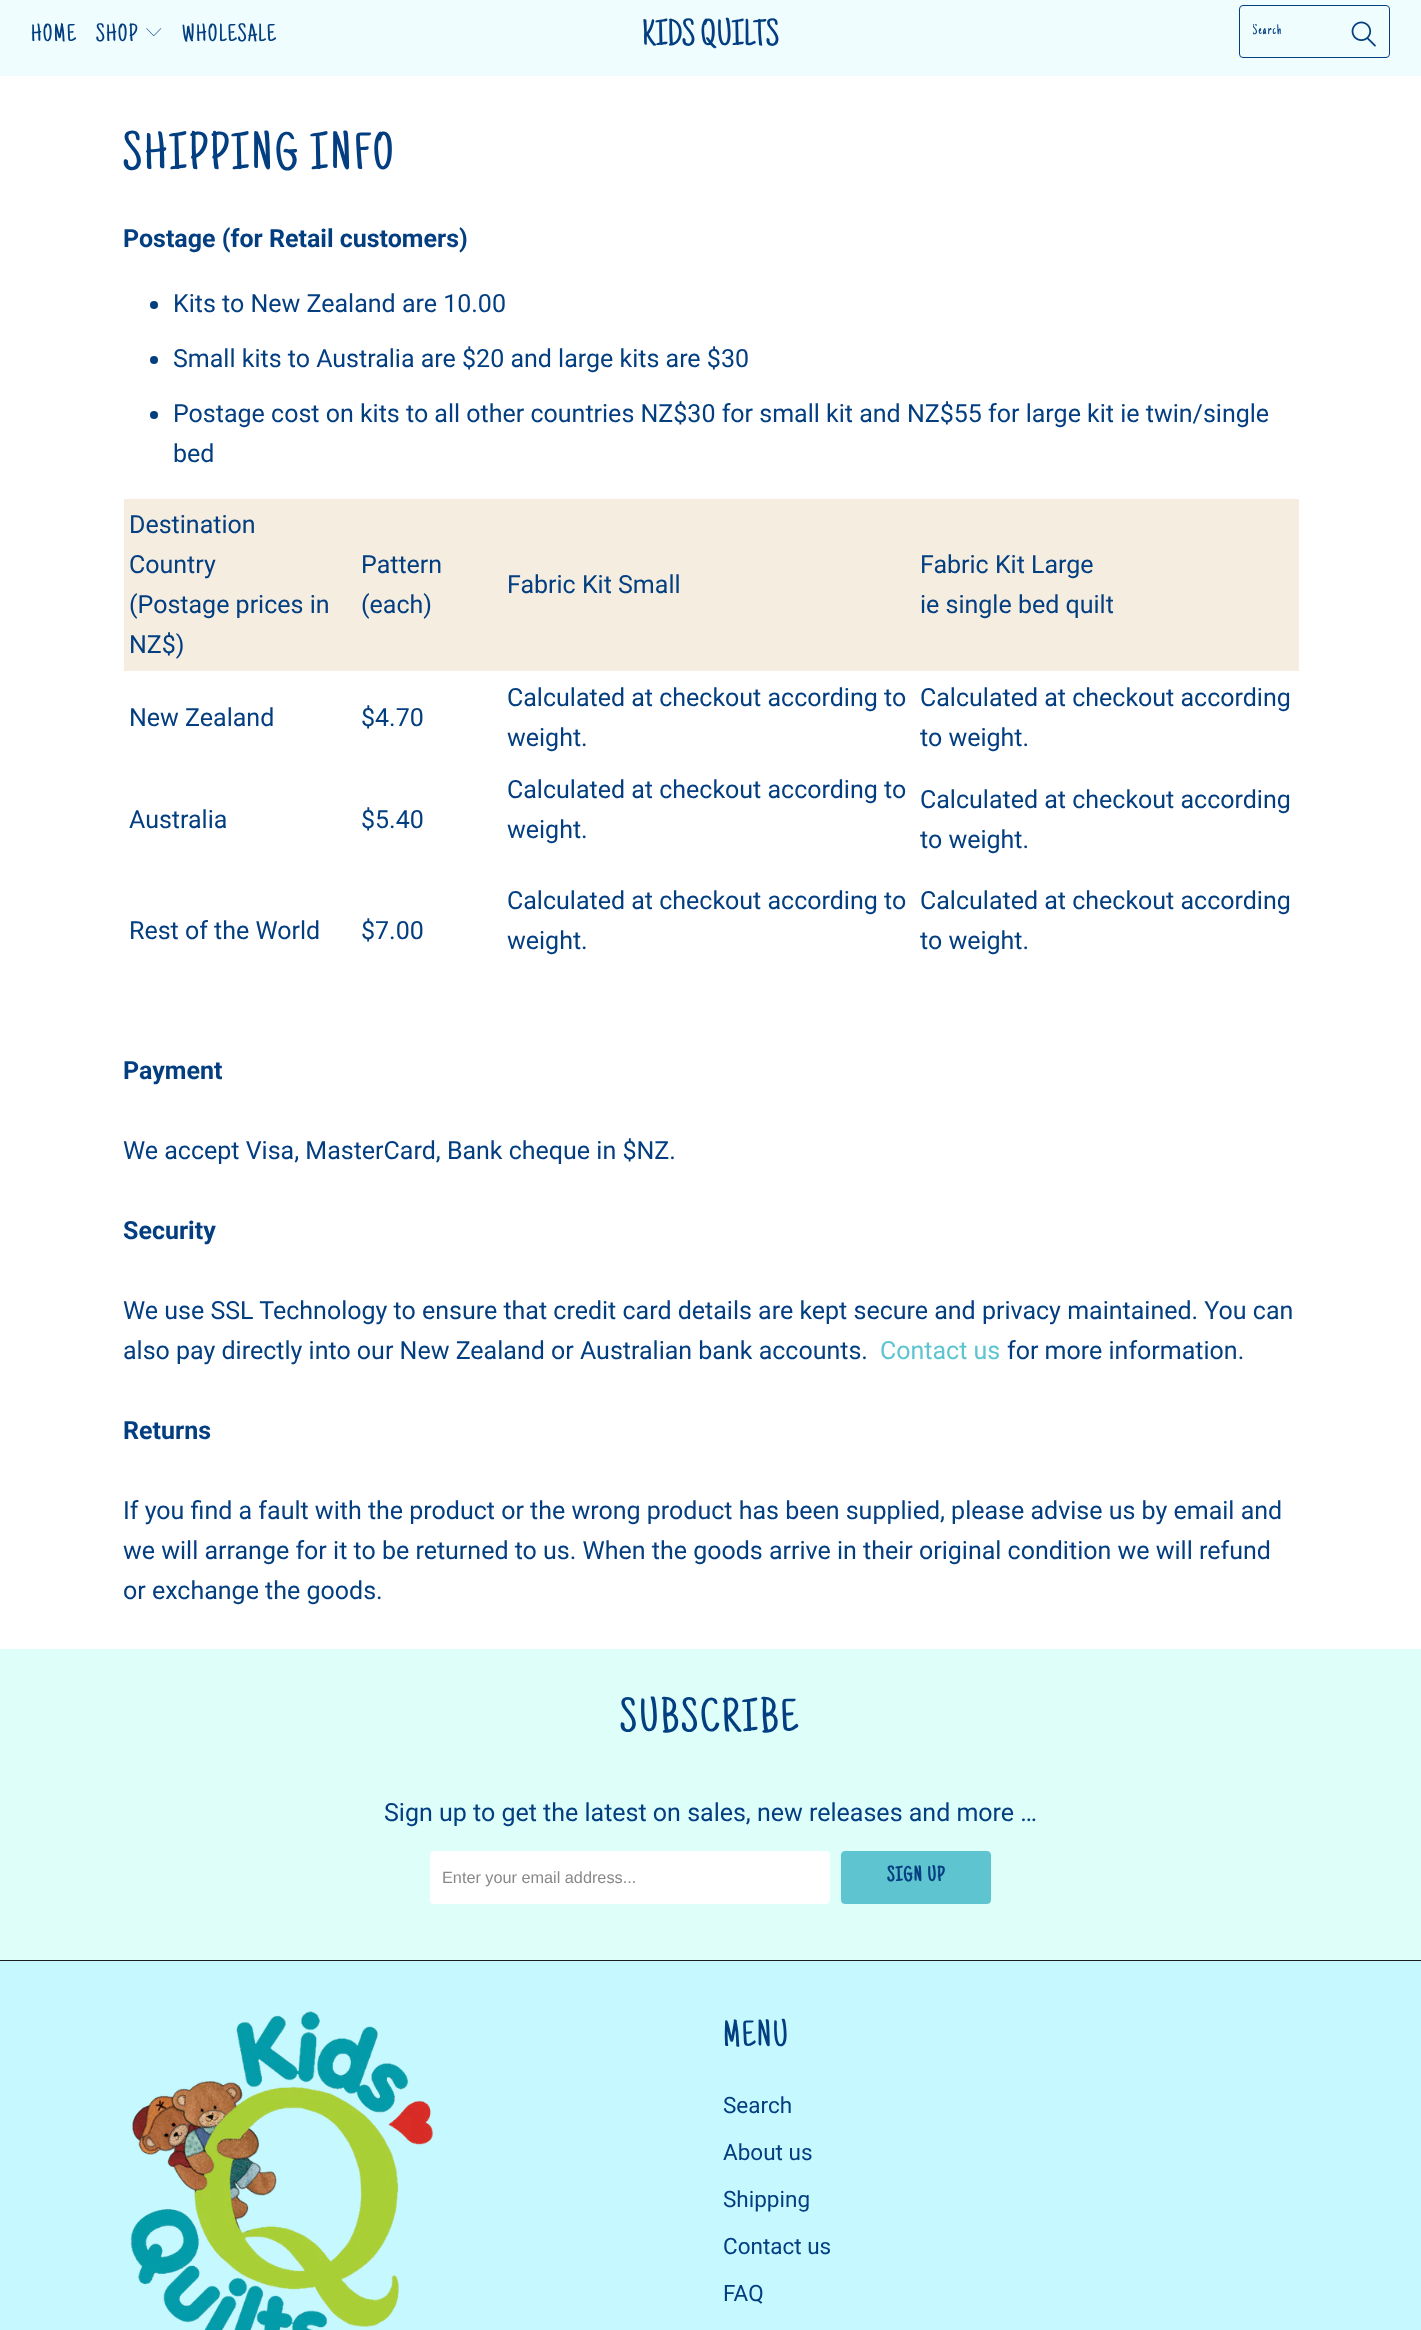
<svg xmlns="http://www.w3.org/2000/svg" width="1421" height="2330">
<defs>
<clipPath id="clip1"><rect x="1253" y="24" width="92" height="15"/></clipPath>
</defs>
<rect width="100%" height="100%" fill="#fff"/>
<rect width="1421" height="76" fill="#f0fdfe"/>
<text x="31" y="41" style="font-family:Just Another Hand;font-size:25px;letter-spacing:1.25px;fill:#033e80">HOME</text>
<text x="96" y="41" style="font-family:Just Another Hand;font-size:25px;letter-spacing:1.25px;fill:#033e80">SHOP</text>
<image x="146" y="28" width="16" height="9" href="media/1.png"/>
<text x="182" y="41" style="font-family:Just Another Hand;font-size:25px;letter-spacing:1.25px;fill:#033e80">WHOLESALE</text>
<text x="642" y="45" style="font-family:Just Another Hand;font-size:37.5px;fill:#033e80">KIDS QUILTS</text>
<rect x="1239.5" y="5.5" width="150" height="52" rx="3.5" fill="none" stroke="#033e80"/>
<g clip-path="url(#clip1)">
<text x="1252" y="34" style="font-family:Just Another Hand;font-size:15px;letter-spacing:1.25px;fill:#033e80">Search</text>
</g>
<image x="1351" y="21" width="25" height="26" href="media/2.png"/>
<text x="123" y="169" style="font-family:Just Another Hand;font-size:53.75px;letter-spacing:2.5px;fill:#033e80">SHIPPING INFO</text>
<text x="123" y="247" style="font-family:Roboto;font-size:25px;font-weight:bold;fill:#033e80">Postage (for Retail customers)</text>
<circle cx="154" cy="305" r="4" fill="#033e80"/>
<text x="173" y="312" style="font-family:Roboto;font-size:25px;fill:#033e80">Kits to New Zealand are 10.00</text>
<circle cx="154" cy="360" r="4" fill="#033e80"/>
<text x="173" y="367" style="font-family:Roboto;font-size:25px;fill:#033e80">Small kits to Australia are $20 and large kits are $30</text>
<circle cx="154" cy="415" r="4" fill="#033e80"/>
<text x="173" y="422" style="font-family:Roboto;font-size:25px;fill:#033e80">Postage cost on kits to all other countries NZ$30 for small kit and NZ$55 for large kit ie twin/single</text>
<text x="173" y="462" style="font-family:Roboto;font-size:25px;fill:#033e80">bed</text>
<rect x="124" y="499" width="1175" height="172" fill="#f4ede0"/>
<text x="129" y="533" style="font-family:Roboto;font-size:25px;fill:#033e80">Destination</text>
<text x="129" y="573" style="font-family:Roboto;font-size:25px;fill:#033e80">Country</text>
<text x="129" y="613" style="font-family:Roboto;font-size:25px;fill:#033e80">(Postage prices in</text>
<text x="129" y="653" style="font-family:Roboto;font-size:25px;fill:#033e80">NZ$)</text>
<text x="361" y="573" style="font-family:Roboto;font-size:25px;fill:#033e80">Pattern</text>
<text x="361" y="613" style="font-family:Roboto;font-size:25px;fill:#033e80">(each)</text>
<text x="507" y="593" style="font-family:Roboto;font-size:25px;fill:#033e80">Fabric Kit Small</text>
<text x="920" y="573" style="font-family:Roboto;font-size:25px;fill:#033e80">Fabric Kit Large</text>
<text x="920" y="613" style="font-family:Roboto;font-size:25px;fill:#033e80">ie single bed quilt</text>
<text x="129" y="726" style="font-family:Roboto;font-size:25px;fill:#033e80">New Zealand</text>
<text x="361" y="726" style="font-family:Roboto;font-size:25px;fill:#033e80">$4.70</text>
<text x="507" y="706" style="font-family:Roboto;font-size:25px;fill:#033e80">Calculated at checkout according to</text>
<text x="507" y="746" style="font-family:Roboto;font-size:25px;fill:#033e80">weight.</text>
<text x="920" y="706" style="font-family:Roboto;font-size:25px;fill:#033e80">Calculated at checkout according</text>
<text x="920" y="746" style="font-family:Roboto;font-size:25px;fill:#033e80">to weight.</text>
<text x="129" y="828" style="font-family:Roboto;font-size:25px;fill:#033e80">Australia</text>
<text x="361" y="828" style="font-family:Roboto;font-size:25px;fill:#033e80">$5.40</text>
<text x="507" y="798" style="font-family:Roboto;font-size:25px;fill:#033e80">Calculated at checkout according to</text>
<text x="507" y="838" style="font-family:Roboto;font-size:25px;fill:#033e80">weight.</text>
<text x="920" y="808" style="font-family:Roboto;font-size:25px;fill:#033e80">Calculated at checkout according</text>
<text x="920" y="848" style="font-family:Roboto;font-size:25px;fill:#033e80">to weight.</text>
<text x="129" y="939" style="font-family:Roboto;font-size:25px;fill:#033e80">Rest of the World</text>
<text x="361" y="939" style="font-family:Roboto;font-size:25px;fill:#033e80">$7.00</text>
<text x="507" y="909" style="font-family:Roboto;font-size:25px;fill:#033e80">Calculated at checkout according to</text>
<text x="507" y="949" style="font-family:Roboto;font-size:25px;fill:#033e80">weight.</text>
<text x="920" y="909" style="font-family:Roboto;font-size:25px;fill:#033e80">Calculated at checkout according</text>
<text x="920" y="949" style="font-family:Roboto;font-size:25px;fill:#033e80">to weight.</text>
<text x="123" y="1079" style="font-family:Roboto;font-size:25px;font-weight:bold;fill:#033e80">Payment</text>
<text x="123" y="1159" style="font-family:Roboto;font-size:25px;fill:#033e80">We accept Visa, MasterCard, Bank cheque in $NZ.</text>
<text x="123" y="1239" style="font-family:Roboto;font-size:25px;font-weight:bold;fill:#033e80">Security</text>
<text x="123" y="1319" style="font-family:Roboto;font-size:25px;fill:#033e80">We use SSL Technology to ensure that credit card details are kept secure and privacy maintained. You can</text>
<text x="123" y="1359" style="font-family:Roboto;font-size:25px;fill:#033e80">also pay directly into our New Zealand or Australian bank accounts.</text>
<text x="880" y="1359" style="font-family:Roboto;font-size:25px;fill:#5ec4d0">Contact us</text>
<text x="1007" y="1359" style="font-family:Roboto;font-size:25px;fill:#033e80">for more information.</text>
<text x="123" y="1439" style="font-family:Roboto;font-size:25px;font-weight:bold;fill:#033e80">Returns</text>
<text x="123" y="1519" style="font-family:Roboto;font-size:25px;fill:#033e80">If you find a fault with the product or the wrong product has been supplied, please advise us by email and</text>
<text x="123" y="1559" style="font-family:Roboto;font-size:25px;fill:#033e80">we will arrange for it to be returned to us. When the goods arrive in their original condition we will refund</text>
<text x="123" y="1599" style="font-family:Roboto;font-size:25px;fill:#033e80">or exchange the goods.</text>
<rect y="1649" width="1421" height="311" fill="#defefa"/>
<text x="620" y="1731" style="font-family:Just Another Hand;font-size:47.5px;letter-spacing:2.5px;fill:#033e80">SUBSCRIBE</text>
<text x="384" y="1821" style="font-family:Roboto;font-size:25px;fill:#033e80">Sign up to get the latest on sales, new releases and more …</text>
<rect x="430" y="1851" width="400" height="53" rx="4" fill="#fff"/>
<text x="442" y="1883" style="font-family:Liberation Sans;font-size:16.25px;fill:#888">Enter your email address...</text>
<rect x="841.5" y="1851.5" width="149" height="52" rx="3.5" fill="#5ec4d0" stroke="#5ec4d0"/>
<text x="887" y="1881" style="font-family:Just Another Hand;font-size:21px;font-weight:bold;letter-spacing:1.25px;fill:#033e80">SIGN UP</text>
<rect y="1961" width="1421" height="369" fill="#c6f9ff"/>
<rect y="1960" width="1421" height="1" fill="#1b1f23"/>
<image x="130" y="2011" width="304" height="319" href="media/3.png"/>
<text x="723" y="2046" style="font-family:Just Another Hand;font-size:37.5px;letter-spacing:1.25px;fill:#033e80">MENU</text>
<text x="723" y="2113" style="font-family:Roboto;font-size:22.5px;fill:#033e80">Search</text>
<text x="723" y="2160" style="font-family:Roboto;font-size:22.5px;fill:#033e80">About us</text>
<text x="723" y="2207" style="font-family:Roboto;font-size:22.5px;fill:#033e80">Shipping</text>
<text x="723" y="2254" style="font-family:Roboto;font-size:22.5px;fill:#033e80">Contact us</text>
<text x="723" y="2301" style="font-family:Roboto;font-size:22.5px;fill:#033e80">FAQ</text>
</svg>
